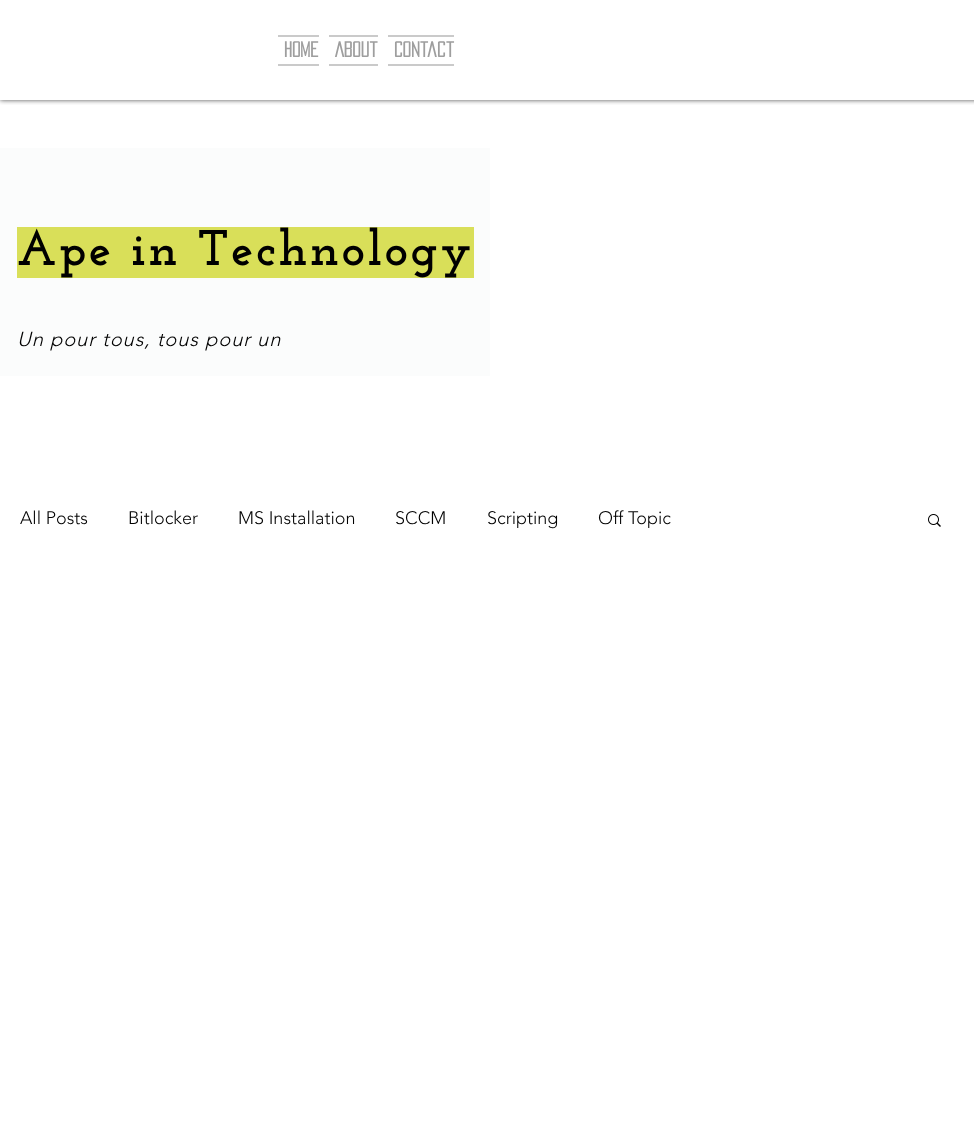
<svg xmlns="http://www.w3.org/2000/svg" width="974" height="1124">
<defs>
<clipPath id="clip1"><rect x="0" y="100" width="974" height="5"/></clipPath>
</defs>
<rect width="100%" height="100%" fill="#fff"/>
<g clip-path="url(#clip1)">
<rect width="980" height="100" fill="#000000b3" filter="blur(2.5px)"/>
</g>
<rect x="278" y="35" width="41" height="2" fill="#cacaca"/>
<rect x="278" y="64" width="41" height="2" fill="#cacaca"/>
<text x="284" y="57" style="font-family:'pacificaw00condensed';font-size:19px;font-weight:bold;fill:#9e9e9e">Home</text>
<rect x="329" y="35" width="49" height="2" fill="#cacaca"/>
<rect x="329" y="64" width="49" height="2" fill="#cacaca"/>
<text x="335" y="57" style="font-family:'pacificaw00condensed';font-size:19px;font-weight:bold;fill:#9e9e9e">About</text>
<rect x="388" y="35" width="66" height="2" fill="#cacaca"/>
<rect x="388" y="64" width="66" height="2" fill="#cacaca"/>
<text x="394" y="57" style="font-family:'pacificaw00condensed';font-size:19px;font-weight:bold;fill:#9e9e9e">Contact</text>
<rect y="148" width="490" height="228" fill="#fbfcfc"/>
<rect x="17" y="227" width="457" height="51" fill="#d9df59"/>
<text x="17" y="265" style="font-family:Josefin Slab;font-size:50px;font-weight:bold;letter-spacing:2.5px;fill:#000">Ape in Technology</text>
<text x="17" y="346" style="font-family:'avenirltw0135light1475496';font-size:20px;font-weight:300;font-style:italic;letter-spacing:1px;fill:#000">Un pour tous, tous pour un</text>
<text x="20" y="524" style="font-family:'avenirltw0135light1475496';font-size:18px;font-weight:300;fill:#000">All Posts</text>
<text x="128" y="524" style="font-family:'avenirltw0135light1475496';font-size:18px;font-weight:300;fill:#000">Bitlocker</text>
<text x="238" y="524" style="font-family:'avenirltw0135light1475496';font-size:18px;font-weight:300;fill:#000">MS Installation</text>
<text x="395" y="524" style="font-family:'avenirltw0135light1475496';font-size:18px;font-weight:300;fill:#000">SCCM</text>
<text x="487" y="524" style="font-family:'avenirltw0135light1475496';font-size:18px;font-weight:300;fill:#000">Scripting</text>
<text x="598" y="524" style="font-family:'avenirltw0135light1475496';font-size:18px;font-weight:300;fill:#000">Off Topic</text>
<image x="928" y="514" width="13" height="13" href="media/1.png"/>
</svg>
